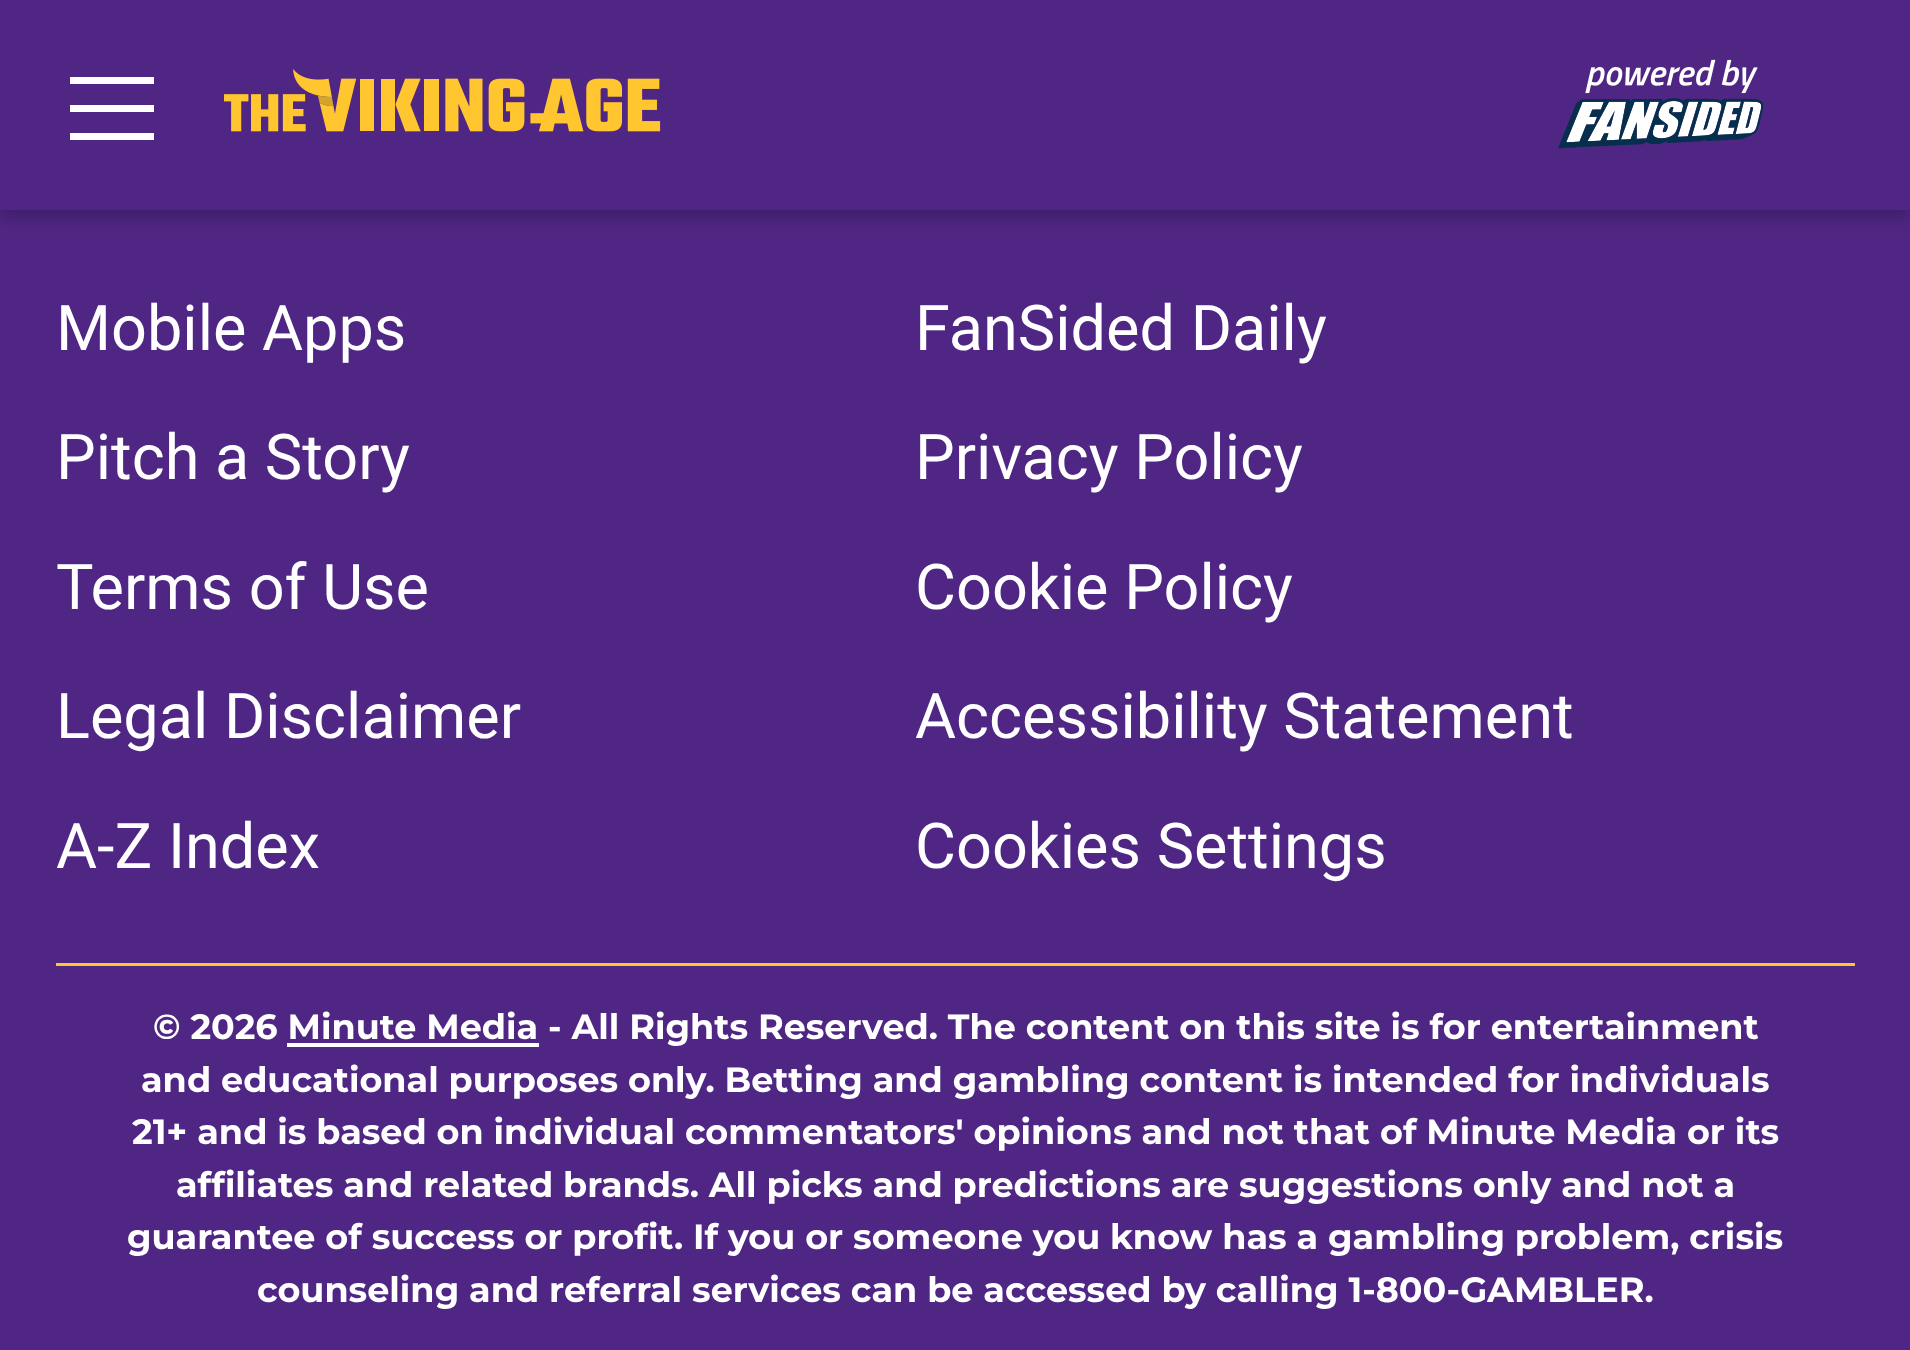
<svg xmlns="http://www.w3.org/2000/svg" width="1910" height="1350">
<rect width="100%" height="100%" fill="#4f2683"/>
<rect y="7" width="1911" height="210" fill="#00000033" filter="blur(7px)"/>
<rect width="1910" height="210" fill="#4f2683"/>
<rect x="70" y="77" width="84" height="7" fill="#fff"/>
<rect x="70" y="105" width="84" height="7" fill="#fff"/>
<rect x="70" y="133" width="84" height="7" fill="#fff"/>
<image x="224" y="69" width="437" height="63" href="media/1.png"/>
<image x="1558" y="59" width="206" height="90" href="media/2.png"/>
<text x="56" y="350" style="font-family:Roboto;font-size:63px;fill:#fff">Mobile Apps</text>
<text x="915" y="350" style="font-family:Roboto;font-size:63px;fill:#fff">FanSided Daily</text>
<text x="56" y="479" style="font-family:Roboto;font-size:63px;fill:#fff">Pitch a Story</text>
<text x="915" y="479" style="font-family:Roboto;font-size:63px;fill:#fff">Privacy Policy</text>
<text x="56" y="609" style="font-family:Roboto;font-size:63px;fill:#fff">Terms of Use</text>
<text x="915" y="609" style="font-family:Roboto;font-size:63px;fill:#fff">Cookie Policy</text>
<text x="56" y="738" style="font-family:Roboto;font-size:63px;fill:#fff">Legal Disclaimer</text>
<text x="915" y="738" style="font-family:Roboto;font-size:63px;fill:#fff">Accessibility Statement</text>
<text x="56" y="868" style="font-family:Roboto;font-size:63px;fill:#fff">A-Z Index</text>
<text x="915" y="868" style="font-family:Roboto;font-size:63px;fill:#fff">Cookies Settings</text>
<rect x="56" y="963" width="1799" height="3" fill="#ffc62f"/>
<text x="153" y="1039" style="font-family:Montserrat;font-size:35px;font-weight:100;fill:#fff">© 2026 Minute Media - All Rights Reserved. The content on this site is for entertainment</text>
<rect x="287" y="1043" width="252" height="4" fill="#fff"/>
<text x="141" y="1092" style="font-family:Montserrat;font-size:35px;font-weight:100;fill:#fff">and educational purposes only. Betting and gambling content is intended for individuals</text>
<text x="132" y="1144" style="font-family:Montserrat;font-size:35px;font-weight:100;fill:#fff">21+ and is based on individual commentators' opinions and not that of Minute Media or its</text>
<text x="176" y="1197" style="font-family:Montserrat;font-size:35px;font-weight:100;fill:#fff">affiliates and related brands. All picks and predictions are suggestions only and not a</text>
<text x="127" y="1249" style="font-family:Montserrat;font-size:35px;font-weight:100;fill:#fff">guarantee of success or profit. If you or someone you know has a gambling problem, crisis</text>
<text x="257" y="1302" style="font-family:Montserrat;font-size:35px;font-weight:100;fill:#fff">counseling and referral services can be accessed by calling 1-800-GAMBLER.</text>
</svg>
